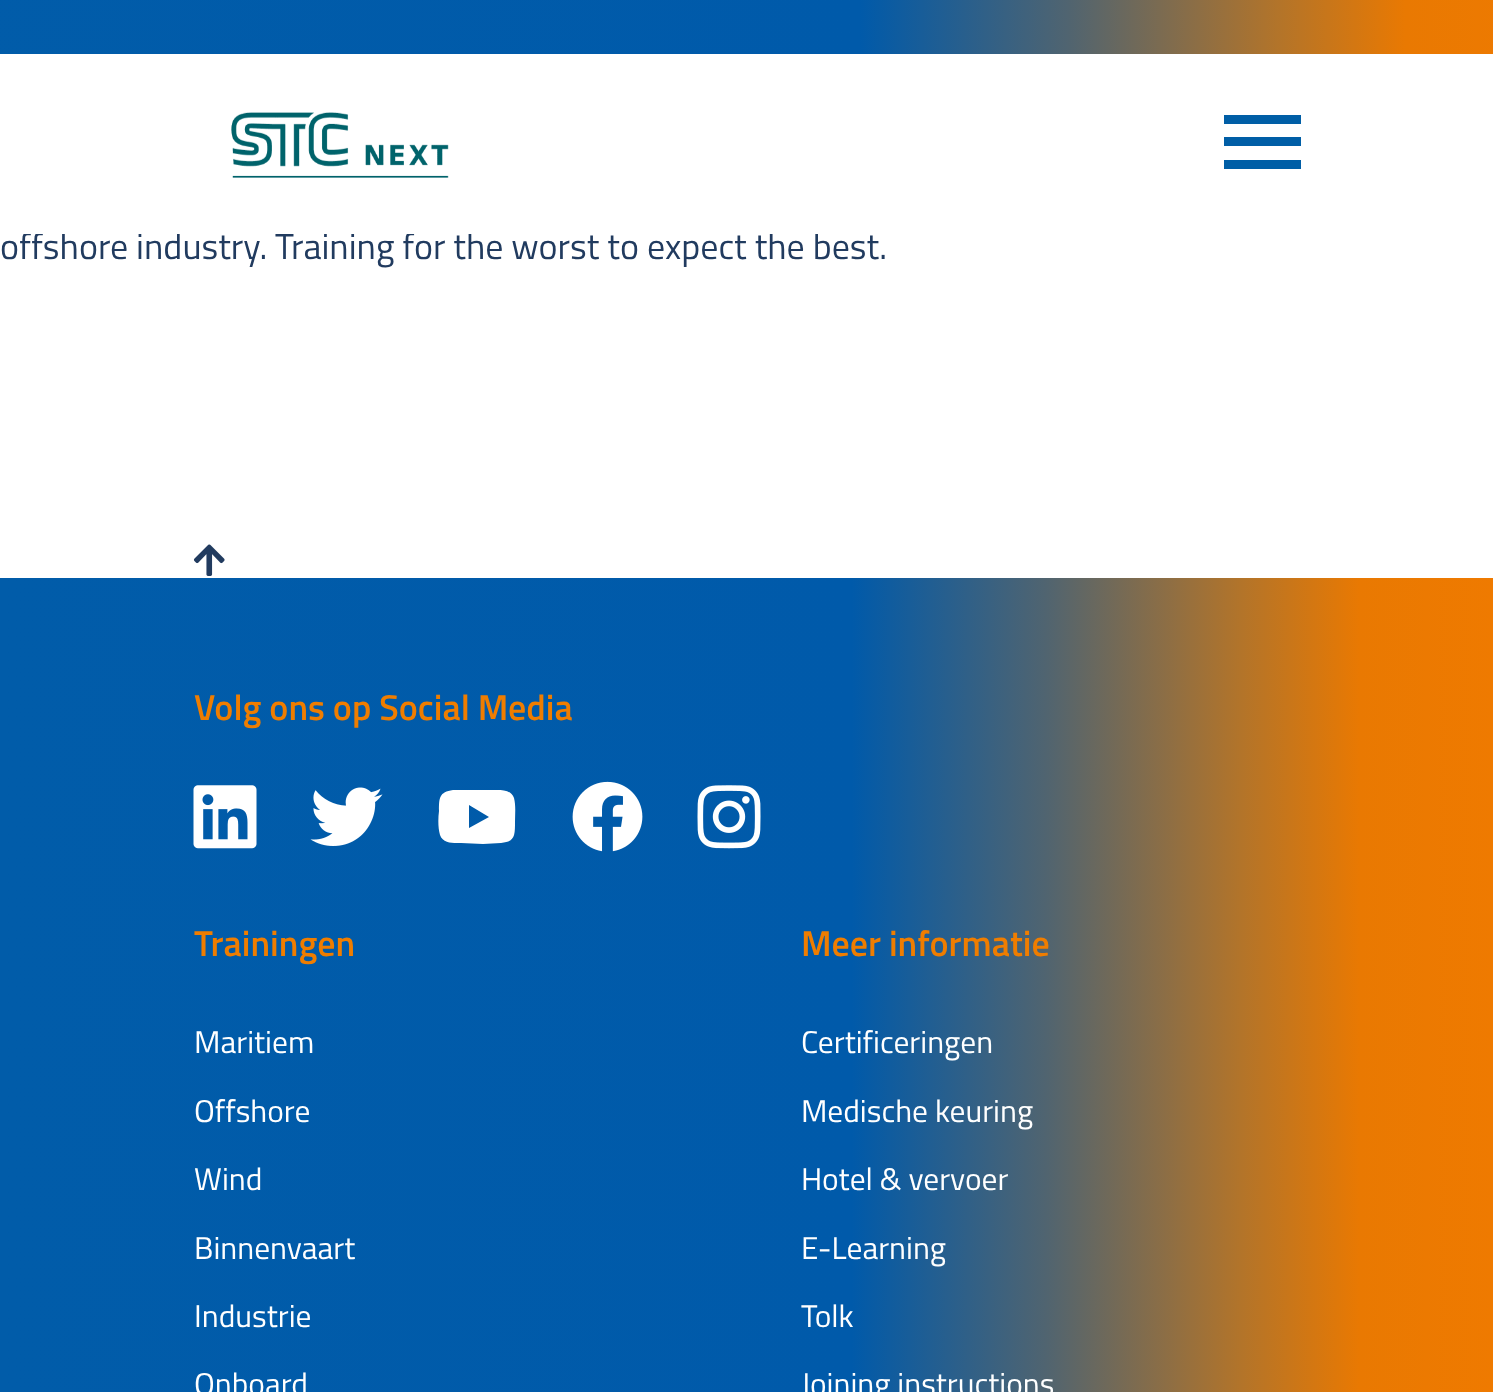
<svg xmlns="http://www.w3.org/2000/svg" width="1493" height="1392">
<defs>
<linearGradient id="g1" gradientUnits="userSpaceOnUse" x1="-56" y1="27" x2="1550" y2="27"><stop offset="0" stop-color="#015ca9"/><stop offset="0.57" stop-color="#005aaa"/><stop offset="0.7" stop-color="#506470"/><stop offset="0.83" stop-color="#b2742a"/><stop offset="0.91" stop-color="#e97902"/><stop offset="1" stop-color="#ef7a00"/></linearGradient>
<linearGradient id="g2" gradientUnits="userSpaceOnUse" x1="0" y1="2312" x2="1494" y2="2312"><stop offset="0" stop-color="#015ca9"/><stop offset="0.57" stop-color="#005aaa"/><stop offset="0.7" stop-color="#506470"/><stop offset="0.83" stop-color="#b2742a"/><stop offset="0.91" stop-color="#e97902"/><stop offset="1" stop-color="#ef7a00"/></linearGradient>
</defs>
<rect width="100%" height="100%" fill="#fff"/>
<text x="0" y="259" style="font-family:Titillium Web;font-size:36px;fill:#213b5f">offshore industry. Training for the worst to expect the best.</text>
<rect x="23" y="232" width="795" height="2" fill="#fff"/>
<rect width="1493" height="54" fill="url(#g1)"/>
<image x="231" y="112" width="218" height="66" href="media/1.png"/>
<rect x="1224" y="115" width="77" height="9" fill="#005ea6"/>
<rect x="1224" y="137" width="77" height="9" fill="#005ea6"/>
<rect x="1224" y="160" width="77" height="9" fill="#005ea6"/>
<image x="193" y="544" width="32" height="32" href="media/2.png"/>
<rect y="578" width="1493" height="814" fill="url(#g2)"/>
<text x="194" y="720" style="font-family:Titillium Web;font-size:36px;font-weight:600;fill:#ef7d00">Volg ons op Social Media</text>
<image x="193" y="785" width="64" height="64" href="media/3.png"/>
<image x="310" y="787" width="73" height="59" href="media/4.png"/>
<path d="M514 798c-3-9-14-8-21-8h-22h-18c-14 2-14 8-14 21c-1 8-1 17 1 24c3 9 14 8 21 8l22 1l18-1c14-1 14-8 14-21c0-8 1-16-1-24zm-45 30v-23l20 12z" fill="#fff"/>
<image x="572" y="781" width="71" height="71" href="media/5.png"/>
<image x="697" y="785" width="64" height="64" href="media/6.png"/>
<text x="194" y="956" style="font-family:Titillium Web;font-size:36px;font-weight:600;fill:#ef7d00">Trainingen</text>
<text x="194" y="1053" style="font-family:Titillium Web;font-size:31.5px;fill:#fff">Maritiem</text>
<text x="194" y="1122" style="font-family:Titillium Web;font-size:31.5px;fill:#fff">Offshore</text>
<text x="194" y="1190" style="font-family:Titillium Web;font-size:31.5px;fill:#fff">Wind</text>
<text x="194" y="1259" style="font-family:Titillium Web;font-size:31.5px;fill:#fff">Binnenvaart</text>
<text x="194" y="1327" style="font-family:Titillium Web;font-size:31.5px;fill:#fff">Industrie</text>
<text x="194" y="1395" style="font-family:Titillium Web;font-size:31.5px;fill:#fff">Onboard</text>
<text x="801" y="956" style="font-family:Titillium Web;font-size:36px;font-weight:600;fill:#ef7d00">Meer informatie</text>
<text x="801" y="1053" style="font-family:Titillium Web;font-size:31.5px;fill:#fff">Certificeringen</text>
<text x="801" y="1122" style="font-family:Titillium Web;font-size:31.5px;fill:#fff">Medische keuring</text>
<text x="801" y="1190" style="font-family:Titillium Web;font-size:31.5px;fill:#fff">Hotel &amp; vervoer</text>
<text x="801" y="1259" style="font-family:Titillium Web;font-size:31.5px;fill:#fff">E-Learning</text>
<text x="801" y="1327" style="font-family:Titillium Web;font-size:31.5px;fill:#fff">Tolk</text>
<text x="801" y="1395" style="font-family:Titillium Web;font-size:31.5px;fill:#fff">Joining instructions</text>
</svg>
